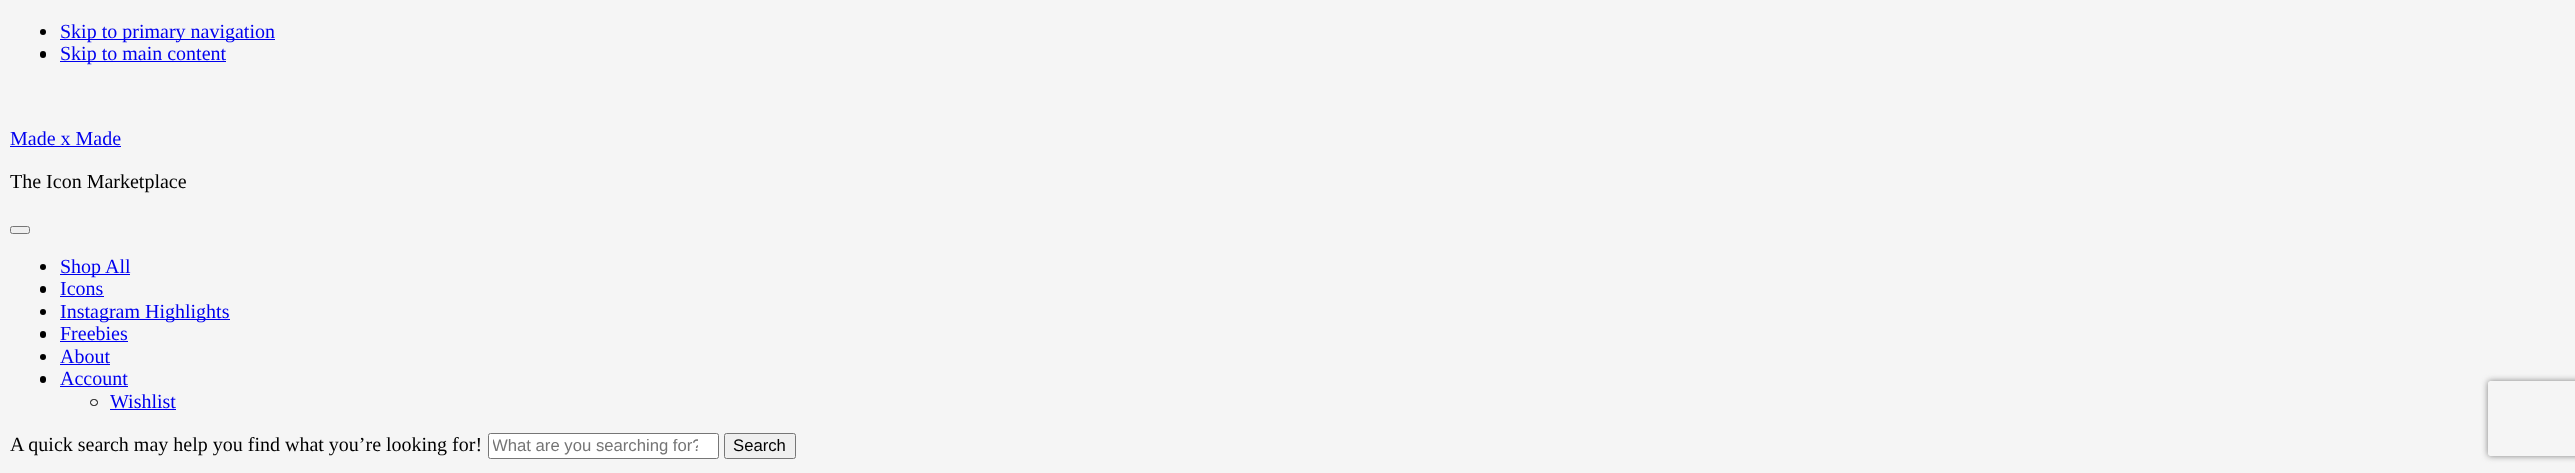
<svg xmlns="http://www.w3.org/2000/svg" width="2575" height="473">
<defs>
<clipPath id="clip1"><rect x="493" y="436" width="205" height="19"/></clipPath>
<clipPath id="clip2"><path d="M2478 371h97v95h-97zm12.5 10h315c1.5 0 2.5 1 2.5 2.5v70c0 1.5-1 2.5-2.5 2.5h-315c-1.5 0-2.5-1-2.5-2.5v-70c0-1.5 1-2.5 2.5-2.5z" clip-rule="evenodd"/></clipPath>
</defs>
<rect width="100%" height="100%" fill="#f5f5f5"/>
<circle cx="43" cy="32" r="3" fill="#000"/>
<rect x="60" y="39" width="215" height="1" fill="#00e"/>
<text x="60" y="38" style="font-family:Liberation Serif;font-size:20px;fill:#00e">Skip to primary navigation</text>
<rect x="40" y="51" width="6" height="7" rx="3" fill="#000"/>
<rect x="60" y="61" width="166" height="1" fill="#00e"/>
<text x="60" y="60" style="font-family:Liberation Serif;font-size:20px;fill:#00e">Skip to main content</text>
<text x="10" y="145" style="font-family:Liberation Serif;font-size:20px;fill:#00e">Made x Made</text>
<rect x="10" y="146" width="111" height="1" fill="#00e"/>
<text x="10" y="188" style="font-family:Liberation Serif;font-size:20px;fill:#000">The Icon Marketplace</text>
<rect x="10.5" y="226.5" width="19" height="7" rx="2" fill="#efefef" stroke="#767676"/>
<circle cx="43" cy="267" r="3" fill="#000"/>
<rect x="60" y="274" width="70" height="1" fill="#00e"/>
<text x="60" y="273" style="font-family:Liberation Serif;font-size:20px;fill:#00e">Shop All</text>
<rect x="40" y="286" width="6" height="7" rx="3" fill="#000"/>
<text x="60" y="295" style="font-family:Liberation Serif;font-size:20px;fill:#00e">Icons</text>
<rect x="60" y="296" width="44" height="1" fill="#00e"/>
<circle cx="43" cy="312" r="3" fill="#000"/>
<rect x="60" y="319" width="170" height="1" fill="#00e"/>
<text x="60" y="318" style="font-family:Liberation Serif;font-size:20px;fill:#00e">Instagram Highlights</text>
<rect x="40" y="331" width="6" height="7" rx="3" fill="#000"/>
<text x="60" y="340" style="font-family:Liberation Serif;font-size:20px;fill:#00e">Freebies</text>
<rect x="60" y="341" width="68" height="1" fill="#00e"/>
<circle cx="43" cy="357" r="3" fill="#000"/>
<text x="60" y="363" style="font-family:Liberation Serif;font-size:20px;fill:#00e">About</text>
<rect x="60" y="364" width="50" height="1" fill="#00e"/>
<rect x="40" y="376" width="6" height="7" rx="3" fill="#000"/>
<text x="60" y="385" style="font-family:Liberation Serif;font-size:20px;fill:#00e">Account</text>
<rect x="60" y="386" width="68" height="1" fill="#00e"/>
<rect x="90.5" y="399.5" width="7" height="6" rx="3" fill="none" stroke="#000"/>
<text x="110" y="408" style="font-family:Liberation Serif;font-size:20px;fill:#00e">Wishlist</text>
<rect x="110" y="409" width="66" height="1" fill="#00e"/>
<text x="10" y="451" style="font-family:Liberation Serif;font-size:20px;fill:#000">A quick search may help you find what you’re looking for!</text>
<rect x="488.5" y="433.5" width="230" height="25" rx="2" fill="#fff" stroke="#767676"/>
<g clip-path="url(#clip1)">
<text x="492" y="451" style="font-family:Liberation Sans;font-size:16.7px;fill:#757575">What are you searching for?</text>
</g>
<rect x="724.5" y="433.5" width="71" height="25" rx="2" fill="#efefef" stroke="#767676"/>
<text x="733" y="451" style="font-family:Liberation Sans;font-size:16.7px;fill:#000">Search</text>
<g clip-path="url(#clip2)">
<rect x="2488" y="381" width="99" height="75" rx="2.5" fill="#808080" filter="blur(3px)"/>
</g>
</svg>
